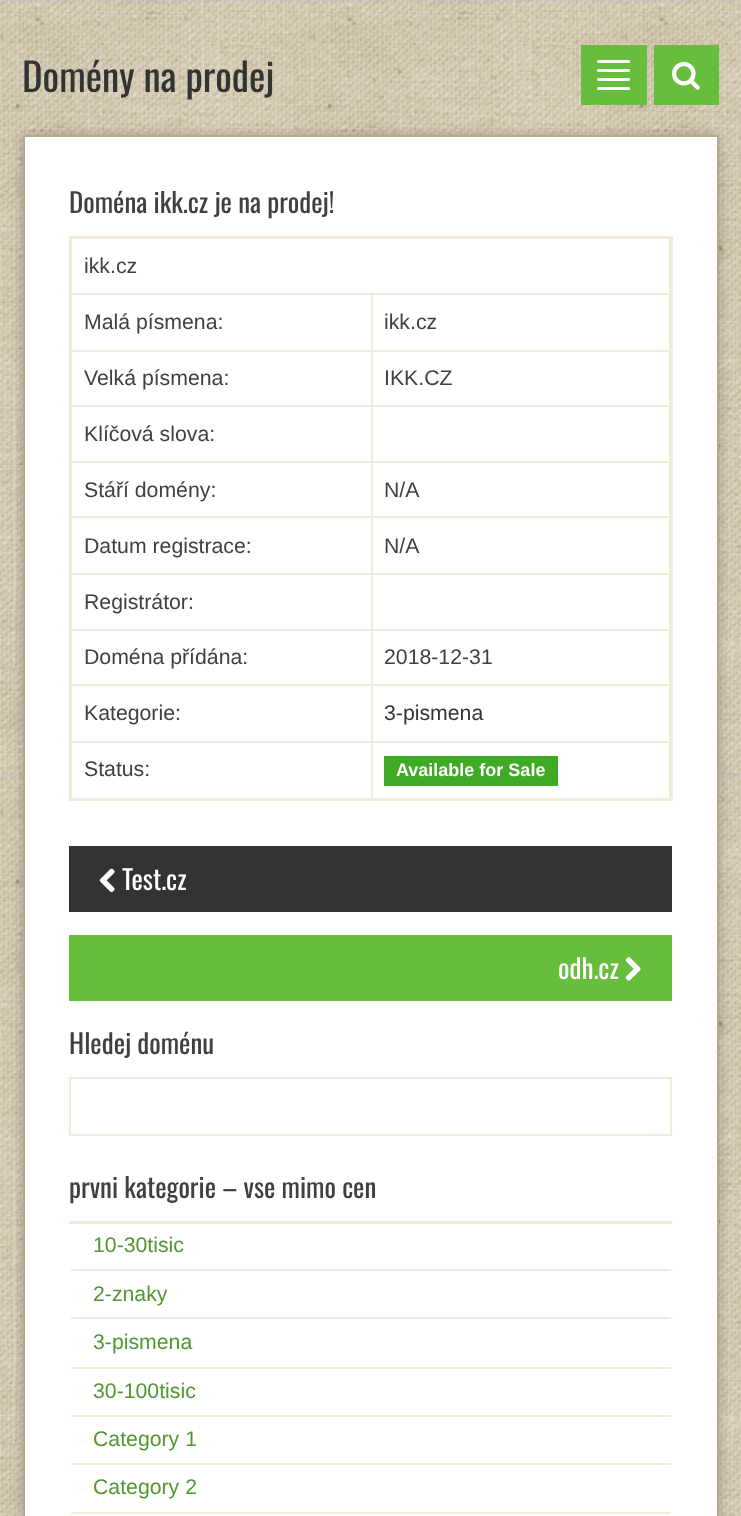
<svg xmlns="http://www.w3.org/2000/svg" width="741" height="1516">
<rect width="100%" height="100%" fill="#fff"/>
<image x="0" y="0" width="741" height="1516" href="media/1.png"/>
<text x="22" y="92" style="font-family:Oswald;font-size:39px;fill:#333">Domény na prodej</text>
<rect x="581" y="45" width="66" height="60" fill="#67bd3c"/>
<rect x="597" y="60" width="33" height="3" rx="1.5" fill="#fff"/>
<rect x="597" y="69" width="33" height="3" rx="1.5" fill="#fff"/>
<rect x="597" y="78" width="33" height="3" rx="1.5" fill="#fff"/>
<rect x="597" y="87" width="33" height="3" rx="1.5" fill="#fff"/>
<rect x="654" y="45" width="65" height="60" fill="#67bd3c"/>
<image x="672" y="61" width="28" height="29" href="media/2.png"/>
<rect x="23" y="135" width="696" height="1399" fill="#3232324d" filter="blur(6px)"/>
<rect x="24" y="136" width="694" height="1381" fill="#fff" stroke="#b6a88b" stroke-width="2"/>
<text x="69" y="213" style="font-family:Oswald;font-size:27px;fill:#404040">Doména ikk.cz je na prodej!</text>
<rect x="69" y="236" width="603" height="1" fill="#f2ebda"/>
<rect x="671" y="236" width="2" height="565" fill="#f2ebda"/>
<rect x="69" y="798" width="603" height="3" fill="#f2ebda"/>
<rect x="69" y="236" width="3" height="565" fill="#f2ebda"/>
<rect x="72" y="237" width="599" height="2" fill="#f2ebda"/>
<rect x="669" y="237" width="2" height="56" fill="#f2ebda"/>
<text x="84" y="273" style="font-family:Liberation Sans;font-size:21.25px;fill:#404040">ikk.cz</text>
<rect x="72" y="293" width="300" height="2" fill="#f2ebda"/>
<rect x="371" y="293" width="2" height="57" fill="#f2ebda"/>
<text x="84" y="329" style="font-family:Liberation Sans;font-size:21.25px;fill:#404040">Malá písmena:</text>
<rect x="372" y="293" width="299" height="2" fill="#f2ebda"/>
<rect x="669" y="293" width="2" height="57" fill="#f2ebda"/>
<text x="384" y="329" style="font-family:Liberation Sans;font-size:21.25px;fill:#404040">ikk.cz</text>
<rect x="72" y="350" width="300" height="2" fill="#f2ebda"/>
<rect x="371" y="350" width="2" height="55" fill="#f2ebda"/>
<text x="84" y="385" style="font-family:Liberation Sans;font-size:21.25px;fill:#404040">Velká písmena:</text>
<rect x="372" y="350" width="299" height="2" fill="#f2ebda"/>
<rect x="669" y="350" width="2" height="55" fill="#f2ebda"/>
<text x="384" y="385" style="font-family:Liberation Sans;font-size:21.25px;fill:#404040">IKK.CZ</text>
<rect x="72" y="405" width="300" height="2" fill="#f2ebda"/>
<rect x="371" y="405" width="2" height="56" fill="#f2ebda"/>
<text x="84" y="441" style="font-family:Liberation Sans;font-size:21.25px;fill:#404040">Klíčová slova:</text>
<rect x="372" y="405" width="299" height="2" fill="#f2ebda"/>
<rect x="669" y="405" width="2" height="56" fill="#f2ebda"/>
<rect x="72" y="461" width="300" height="2" fill="#f2ebda"/>
<rect x="371" y="461" width="2" height="55" fill="#f2ebda"/>
<text x="84" y="497" style="font-family:Liberation Sans;font-size:21.25px;fill:#404040">Stáří domény:</text>
<rect x="372" y="461" width="299" height="2" fill="#f2ebda"/>
<rect x="669" y="461" width="2" height="55" fill="#f2ebda"/>
<text x="384" y="497" style="font-family:Liberation Sans;font-size:21.25px;fill:#404040">N/A</text>
<rect x="72" y="516" width="300" height="2" fill="#f2ebda"/>
<rect x="371" y="516" width="2" height="57" fill="#f2ebda"/>
<text x="84" y="553" style="font-family:Liberation Sans;font-size:21.25px;fill:#404040">Datum registrace:</text>
<rect x="372" y="516" width="299" height="2" fill="#f2ebda"/>
<rect x="669" y="516" width="2" height="57" fill="#f2ebda"/>
<text x="384" y="553" style="font-family:Liberation Sans;font-size:21.25px;fill:#404040">N/A</text>
<rect x="72" y="573" width="300" height="2" fill="#f2ebda"/>
<rect x="371" y="573" width="2" height="56" fill="#f2ebda"/>
<text x="84" y="609" style="font-family:Liberation Sans;font-size:21.25px;fill:#404040">Registrátor:</text>
<rect x="372" y="573" width="299" height="2" fill="#f2ebda"/>
<rect x="669" y="573" width="2" height="56" fill="#f2ebda"/>
<rect x="72" y="629" width="300" height="2" fill="#f2ebda"/>
<rect x="371" y="629" width="2" height="55" fill="#f2ebda"/>
<text x="84" y="664" style="font-family:Liberation Sans;font-size:21.25px;fill:#404040">Doména přídána:</text>
<rect x="372" y="629" width="299" height="2" fill="#f2ebda"/>
<rect x="669" y="629" width="2" height="55" fill="#f2ebda"/>
<text x="384" y="664" style="font-family:Liberation Sans;font-size:21.25px;fill:#404040">2018-12-31</text>
<rect x="72" y="684" width="300" height="2" fill="#f2ebda"/>
<rect x="371" y="684" width="2" height="57" fill="#f2ebda"/>
<text x="84" y="720" style="font-family:Liberation Sans;font-size:21.25px;fill:#404040">Kategorie:</text>
<rect x="372" y="684" width="299" height="2" fill="#f2ebda"/>
<rect x="669" y="684" width="2" height="57" fill="#f2ebda"/>
<text x="384" y="720" style="font-family:Liberation Sans;font-size:21.25px;fill:#333">3-pismena</text>
<rect x="72" y="741" width="300" height="2" fill="#f2ebda"/>
<rect x="371" y="741" width="2" height="57" fill="#f2ebda"/>
<text x="84" y="776" style="font-family:Liberation Sans;font-size:21.25px;fill:#404040">Status:</text>
<rect x="372" y="741" width="299" height="2" fill="#f2ebda"/>
<rect x="669" y="741" width="2" height="57" fill="#f2ebda"/>
<rect x="384" y="756" width="174" height="30" fill="#40a925"/>
<text x="396" y="776" style="font-family:Liberation Sans;font-size:18px;font-weight:bold;fill:#fff">Available for Sale</text>
<rect x="69" y="846" width="603" height="66" fill="#333"/>
<image x="99" y="868" width="16" height="25" href="media/3.png"/>
<text x="122" y="890" style="font-family:Oswald;font-size:27px;fill:#fff">Test.cz</text>
<rect x="69" y="935" width="603" height="66" fill="#67bd3c"/>
<text x="558" y="979" style="font-family:Oswald;font-size:27px;fill:#fff">odh.cz</text>
<image x="625" y="957" width="16" height="24" href="media/4.png"/>
<text x="69" y="1054" style="font-family:Oswald;font-size:27px;fill:#404040">Hledej doménu</text>
<rect x="70" y="1078" width="601" height="57" fill="none" stroke="#f2ebda" stroke-width="2"/>
<text x="69" y="1198" style="font-family:Oswald;font-size:27px;fill:#404040">prvni kategorie – vse mimo cen</text>
<rect x="69" y="1221" width="603" height="3" fill="#f2ebda"/>
<text x="93" y="1252" style="font-family:Liberation Sans;font-size:21.25px;fill:#519630">10-30tisic</text>
<rect x="71" y="1269" width="600" height="2" fill="#f2ebda"/>
<text x="93" y="1301" style="font-family:Liberation Sans;font-size:21.25px;fill:#519630">2-znaky</text>
<rect x="71" y="1317" width="600" height="2" fill="#f2ebda"/>
<text x="93" y="1349" style="font-family:Liberation Sans;font-size:21.25px;fill:#519630">3-pismena</text>
<rect x="71" y="1367" width="600" height="2" fill="#f2ebda"/>
<text x="93" y="1398" style="font-family:Liberation Sans;font-size:21.25px;fill:#519630">30-100tisic</text>
<rect x="71" y="1415" width="600" height="2" fill="#f2ebda"/>
<text x="93" y="1446" style="font-family:Liberation Sans;font-size:21.25px;fill:#519630">Category 1</text>
<rect x="71" y="1463" width="600" height="2" fill="#f2ebda"/>
<text x="93" y="1494" style="font-family:Liberation Sans;font-size:21.25px;fill:#519630">Category 2</text>
<rect x="71" y="1512" width="600" height="2" fill="#f2ebda"/>
</svg>
